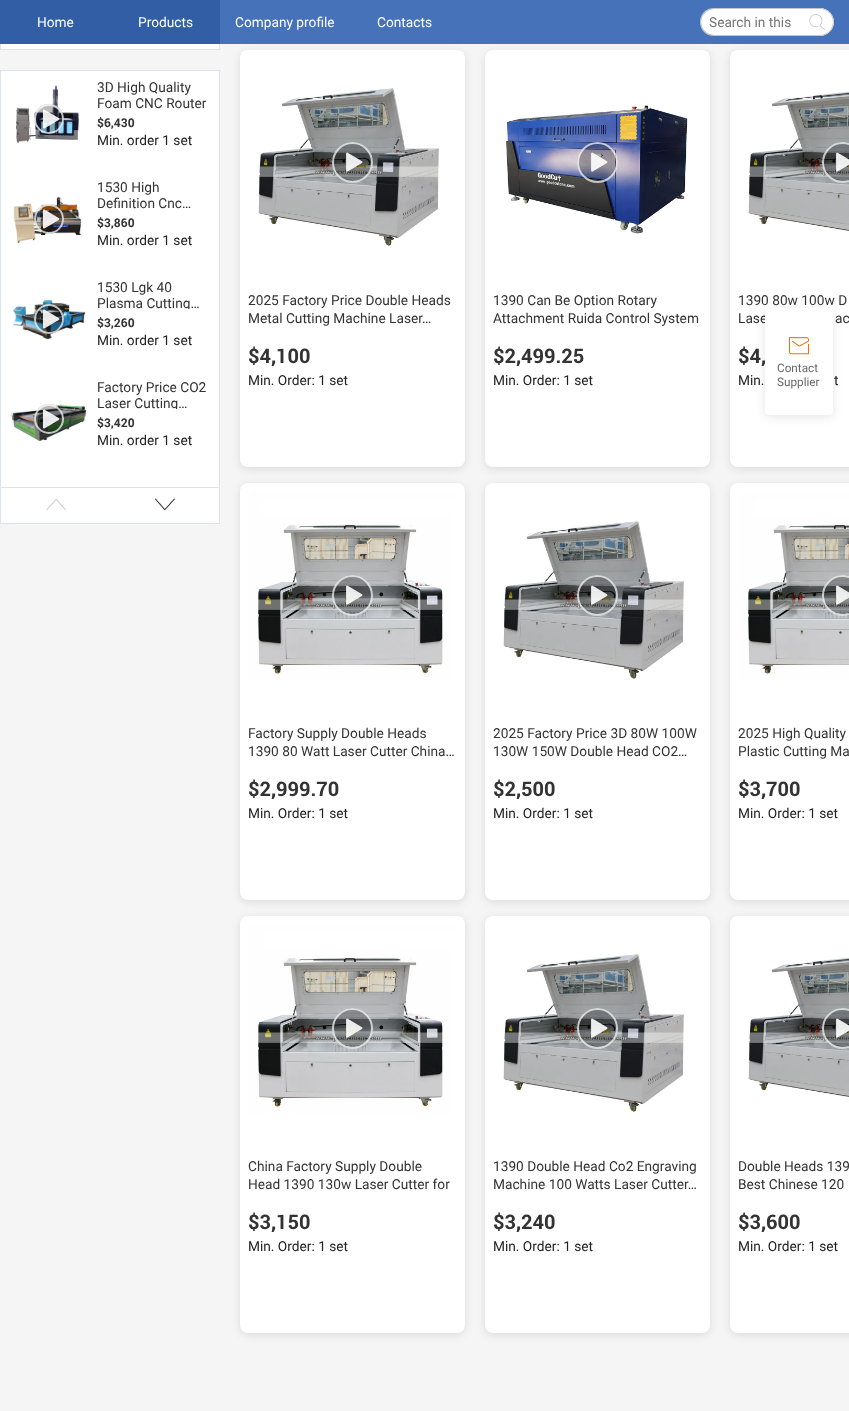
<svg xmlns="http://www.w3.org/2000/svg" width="849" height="1411">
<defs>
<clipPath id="clip1"><rect x="97" y="279" width="114" height="30"/></clipPath>
<clipPath id="clip2"><rect x="97" y="379" width="114" height="30"/></clipPath>
</defs>
<rect width="100%" height="100%" fill="#f5f5f5"/>
<rect x="240" y="52" width="225" height="417" rx="8" fill="#0000001a" filter="blur(4px)"/>
<rect x="485" y="52" width="225" height="417" rx="8" fill="#0000001a" filter="blur(4px)"/>
<rect x="730" y="52" width="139" height="417" rx="8" fill="#0000001a" filter="blur(4px)"/>
<rect x="220" width="629" height="44" fill="#4572b9"/>
<rect width="220" height="44" fill="#315ea5"/>
<text x="37" y="27" style="font-family:Roboto;font-size:14px;fill:#fff">Home</text>
<text x="138" y="27" style="font-family:Roboto;font-size:14px;fill:#fff">Products</text>
<text x="235" y="27" style="font-family:Roboto;font-size:14px;fill:#fff">Company profile</text>
<text x="377" y="27" style="font-family:Roboto;font-size:14px;fill:#fff">Contacts</text>
<path d="M714 8h87v28h-87c-8 0-14-6-14-14c0-8 6-14 14-14zm0 1h87v26h-87c-7 0-13-6-13-13c0-7 6-13 13-13z" fill="#c4c6cf" fill-rule="evenodd"/>
<path d="M714 9h86.5c.5 0 .5 0 .5 .5v25c0 .5 0 .5-.5 .5h-86.5c-7 0-13-6-13-13c0-7 6-13 13-13z" fill="#fff"/>
<text x="709" y="27" style="font-family:Roboto;font-size:14px;fill:#757575">Search in this</text>
<path d="M801 8h19c7.5 0 14 6.5 14 14c0 7.5-6.5 14-14 14h-19z" fill="#fff"/>
<path d="M801 8h19c7.5 0 14 6.5 14 14c0 7.5-6.5 14-14 14h-19zm0 1h19c7 0 13 6 13 13c0 7-6 13-13 13h-19z" fill="#c4c6cf" fill-rule="evenodd"/>
<image x="809" y="14" width="16" height="16" href="media/1.png"/>
<rect x="1" y="44" width="218" height="5" fill="#fff"/>
<rect x="219" y="44" width="1" height="6" fill="#dbe3ef"/>
<rect y="49" width="220" height="1" fill="#dbe3ef"/>
<rect y="44" width="1" height="6" fill="#dbe3ef"/>
<rect x="0.5" y="70.5" width="219" height="453" fill="#fff" stroke="#dbe3ef"/>
<image x="16" y="85" width="64" height="58" href="media/2.png"/>
<circle cx="49" cy="119" r="15" fill="#00000045"/>
<circle cx="49" cy="119" r="14" fill="none" stroke="#ffffffb8" stroke-width="2"/>
<image x="42" y="109" width="18" height="20" href="media/3.png"/>
<text x="97" y="92" style="font-family:Roboto;font-size:14px;fill:#333">3D High Quality</text>
<text x="97" y="108" style="font-family:Roboto;font-size:14px;fill:#333">Foam CNC Router</text>
<text x="97" y="127" style="font-family:Roboto;font-size:12px;font-weight:bold;fill:#333">$6,430</text>
<text x="97" y="145" style="font-family:Roboto;font-size:14px;fill:#222">Min. order 1 set</text>
<image x="13" y="196" width="69" height="47" href="media/4.png"/>
<circle cx="49" cy="219" r="15" fill="#00000045"/>
<circle cx="49" cy="219" r="14" fill="none" stroke="#ffffffb8" stroke-width="2"/>
<image x="42" y="209" width="18" height="20" href="media/5.png"/>
<text x="97" y="192" style="font-family:Roboto;font-size:14px;fill:#333">1530 High</text>
<text x="97" y="208" style="font-family:Roboto;font-size:14px;fill:#333">Definition Cnc…</text>
<text x="97" y="227" style="font-family:Roboto;font-size:12px;font-weight:bold;fill:#333">$3,860</text>
<text x="97" y="245" style="font-family:Roboto;font-size:14px;fill:#222">Min. order 1 set</text>
<image x="13" y="299" width="73" height="41" href="media/6.png"/>
<circle cx="49" cy="319" r="15" fill="#00000045"/>
<circle cx="49" cy="319" r="14" fill="none" stroke="#ffffffb8" stroke-width="2"/>
<image x="42" y="309" width="18" height="20" href="media/7.png"/>
<text x="97" y="292" style="font-family:Roboto;font-size:14px;fill:#333">1530 Lgk 40</text>
<g clip-path="url(#clip1)">
<text x="97" y="308" style="font-family:Roboto;font-size:14px;fill:#333">Plasma Cutting…</text>
</g>
<text x="97" y="327" style="font-family:Roboto;font-size:12px;font-weight:bold;fill:#333">$3,260</text>
<text x="97" y="345" style="font-family:Roboto;font-size:14px;fill:#222">Min. order 1 set</text>
<image x="11" y="404" width="76" height="38" href="media/8.png"/>
<circle cx="49" cy="419" r="15" fill="#00000045"/>
<circle cx="49" cy="419" r="14" fill="none" stroke="#ffffffb8" stroke-width="2"/>
<image x="42" y="409" width="18" height="20" href="media/9.png"/>
<text x="97" y="392" style="font-family:Roboto;font-size:14px;fill:#333">Factory Price CO2</text>
<g clip-path="url(#clip2)">
<text x="97" y="408" style="font-family:Roboto;font-size:14px;fill:#333">Laser Cutting…</text>
</g>
<text x="97" y="427" style="font-family:Roboto;font-size:12px;font-weight:bold;fill:#333">$3,420</text>
<text x="97" y="445" style="font-family:Roboto;font-size:14px;fill:#222">Min. order 1 set</text>
<rect x="1" y="487" width="218" height="1" fill="#dbe3ef"/>
<image x="46" y="498" width="20" height="13" href="media/10.png"/>
<image x="155" y="498" width="20" height="13" href="media/11.png"/>
<rect x="240" y="50" width="225" height="417" rx="8" fill="#fff"/>
<image x="248" y="58" width="209" height="209" href="media/12.png"/>
<circle cx="352.5" cy="162.5" r="20.5" fill="#00000045"/>
<circle cx="352.5" cy="162.5" r="19.5" fill="none" stroke="#ffffffb8" stroke-width="2"/>
<image x="346" y="152" width="17" height="20" href="media/13.png"/>
<text x="248" y="305" style="font-family:Roboto;font-size:14px;fill:#333">2025 Factory Price Double Heads</text>
<text x="248" y="323" style="font-family:Roboto;font-size:14px;fill:#333">Metal Cutting Machine Laser…</text>
<text x="248" y="363" style="font-family:Roboto;font-size:20px;font-weight:bold;fill:#333">$4,100</text>
<text x="248" y="385" style="font-family:Roboto;font-size:14px;fill:#222">Min. Order: 1 set</text>
<rect x="485" y="50" width="225" height="417" rx="8" fill="#fff"/>
<image x="493" y="58" width="209" height="209" href="media/14.png"/>
<circle cx="597.5" cy="162.5" r="20.5" fill="#00000045"/>
<circle cx="597.5" cy="162.5" r="19.5" fill="none" stroke="#ffffffb8" stroke-width="2"/>
<image x="591" y="152" width="17" height="20" href="media/15.png"/>
<text x="493" y="305" style="font-family:Roboto;font-size:14px;fill:#333">1390 Can Be Option Rotary</text>
<text x="493" y="323" style="font-family:Roboto;font-size:14px;fill:#333">Attachment Ruida Control System</text>
<text x="493" y="363" style="font-family:Roboto;font-size:20px;font-weight:bold;fill:#333">$2,499.25</text>
<text x="493" y="385" style="font-family:Roboto;font-size:14px;fill:#222">Min. Order: 1 set</text>
<rect x="730" y="50" width="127" height="417" rx="8" fill="#fff"/>
<image x="738" y="58" width="111" height="209" href="media/16.png"/>
<circle cx="842.5" cy="162.5" r="20.5" fill="#00000045"/>
<circle cx="842.5" cy="162.5" r="19.5" fill="none" stroke="#ffffffb8" stroke-width="2"/>
<image x="836" y="152" width="13" height="20" href="media/17.png"/>
<text x="738" y="305" style="font-family:Roboto;font-size:14px;fill:#333">1390 80w 100w D</text>
<text x="738" y="323" style="font-family:Roboto;font-size:14px;fill:#333">Lase</text>
<text x="835" y="323" style="font-family:Roboto;font-size:14px;fill:#333">ac</text>
<text x="738" y="363" style="font-family:Roboto;font-size:20px;font-weight:bold;fill:#333">$4,</text>
<text x="738" y="385" style="font-family:Roboto;font-size:14px;fill:#222">Min.</text>
<text x="834" y="385" style="font-family:Roboto;font-size:14px;fill:#222">t</text>
<rect x="240" y="485" width="225" height="417" rx="8" fill="#0000001a" filter="blur(4px)"/>
<rect x="240" y="483" width="225" height="417" rx="8" fill="#fff"/>
<image x="248" y="491" width="209" height="209" href="media/18.png"/>
<circle cx="352.5" cy="595.5" r="20.5" fill="#00000045"/>
<circle cx="352.5" cy="595.5" r="19.5" fill="none" stroke="#ffffffb8" stroke-width="2"/>
<image x="346" y="585" width="17" height="20" href="media/19.png"/>
<text x="248" y="738" style="font-family:Roboto;font-size:14px;fill:#333">Factory Supply Double Heads</text>
<text x="248" y="756" style="font-family:Roboto;font-size:14px;fill:#333">1390 80 Watt Laser Cutter China…</text>
<text x="248" y="796" style="font-family:Roboto;font-size:20px;font-weight:bold;fill:#333">$2,999.70</text>
<text x="248" y="818" style="font-family:Roboto;font-size:14px;fill:#222">Min. Order: 1 set</text>
<rect x="485" y="485" width="225" height="417" rx="8" fill="#0000001a" filter="blur(4px)"/>
<rect x="485" y="483" width="225" height="417" rx="8" fill="#fff"/>
<image x="493" y="491" width="209" height="209" href="media/20.png"/>
<circle cx="597.5" cy="595.5" r="20.5" fill="#00000045"/>
<circle cx="597.5" cy="595.5" r="19.5" fill="none" stroke="#ffffffb8" stroke-width="2"/>
<image x="591" y="585" width="17" height="20" href="media/13.png"/>
<text x="493" y="738" style="font-family:Roboto;font-size:14px;fill:#333">2025 Factory Price 3D 80W 100W</text>
<text x="493" y="756" style="font-family:Roboto;font-size:14px;fill:#333">130W 150W Double Head CO2…</text>
<text x="493" y="796" style="font-family:Roboto;font-size:20px;font-weight:bold;fill:#333">$2,500</text>
<text x="493" y="818" style="font-family:Roboto;font-size:14px;fill:#222">Min. Order: 1 set</text>
<rect x="730" y="485" width="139" height="417" rx="8" fill="#0000001a" filter="blur(4px)"/>
<rect x="730" y="483" width="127" height="417" rx="8" fill="#fff"/>
<image x="738" y="491" width="111" height="209" href="media/21.png"/>
<circle cx="842.5" cy="595.5" r="20.5" fill="#00000045"/>
<circle cx="842.5" cy="595.5" r="19.5" fill="none" stroke="#ffffffb8" stroke-width="2"/>
<image x="836" y="585" width="13" height="20" href="media/22.png"/>
<text x="738" y="738" style="font-family:Roboto;font-size:14px;fill:#333">2025 High Quality</text>
<text x="738" y="756" style="font-family:Roboto;font-size:14px;fill:#333">Plastic Cutting Ma</text>
<text x="738" y="796" style="font-family:Roboto;font-size:20px;font-weight:bold;fill:#333">$3,700</text>
<text x="738" y="818" style="font-family:Roboto;font-size:14px;fill:#222">Min. Order: 1 set</text>
<rect x="240" y="918" width="225" height="417" rx="8" fill="#0000001a" filter="blur(4px)"/>
<rect x="240" y="916" width="225" height="417" rx="8" fill="#fff"/>
<image x="248" y="924" width="209" height="209" href="media/18.png"/>
<circle cx="352.5" cy="1028.5" r="20.5" fill="#00000045"/>
<circle cx="352.5" cy="1028.5" r="19.5" fill="none" stroke="#ffffffb8" stroke-width="2"/>
<image x="346" y="1018" width="17" height="20" href="media/19.png"/>
<text x="248" y="1171" style="font-family:Roboto;font-size:14px;fill:#333">China Factory Supply Double</text>
<text x="248" y="1189" style="font-family:Roboto;font-size:14px;fill:#333">Head 1390 130w Laser Cutter for</text>
<text x="248" y="1229" style="font-family:Roboto;font-size:20px;font-weight:bold;fill:#333">$3,150</text>
<text x="248" y="1251" style="font-family:Roboto;font-size:14px;fill:#222">Min. Order: 1 set</text>
<rect x="485" y="918" width="225" height="417" rx="8" fill="#0000001a" filter="blur(4px)"/>
<rect x="485" y="916" width="225" height="417" rx="8" fill="#fff"/>
<image x="493" y="924" width="209" height="209" href="media/20.png"/>
<circle cx="597.5" cy="1028.5" r="20.5" fill="#00000045"/>
<circle cx="597.5" cy="1028.5" r="19.5" fill="none" stroke="#ffffffb8" stroke-width="2"/>
<image x="591" y="1018" width="17" height="20" href="media/13.png"/>
<text x="493" y="1171" style="font-family:Roboto;font-size:14px;fill:#333">1390 Double Head Co2 Engraving</text>
<text x="493" y="1189" style="font-family:Roboto;font-size:14px;fill:#333">Machine 100 Watts Laser Cutter…</text>
<text x="493" y="1229" style="font-family:Roboto;font-size:20px;font-weight:bold;fill:#333">$3,240</text>
<text x="493" y="1251" style="font-family:Roboto;font-size:14px;fill:#222">Min. Order: 1 set</text>
<rect x="730" y="918" width="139" height="417" rx="8" fill="#0000001a" filter="blur(4px)"/>
<rect x="730" y="916" width="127" height="417" rx="8" fill="#fff"/>
<image x="738" y="924" width="111" height="209" href="media/16.png"/>
<circle cx="842.5" cy="1028.5" r="20.5" fill="#00000045"/>
<circle cx="842.5" cy="1028.5" r="19.5" fill="none" stroke="#ffffffb8" stroke-width="2"/>
<image x="836" y="1018" width="13" height="20" href="media/17.png"/>
<text x="738" y="1171" style="font-family:Roboto;font-size:14px;fill:#333">Double Heads 139</text>
<text x="738" y="1189" style="font-family:Roboto;font-size:14px;fill:#333">Best Chinese 120</text>
<text x="738" y="1229" style="font-family:Roboto;font-size:20px;font-weight:bold;fill:#333">$3,600</text>
<text x="738" y="1251" style="font-family:Roboto;font-size:14px;fill:#222">Min. Order: 1 set</text>
<rect x="765" y="310" width="68" height="107" rx="4" fill="#0000001a" filter="blur(5px)"/>
<rect x="765" y="308" width="68" height="107" rx="4" fill="#fff"/>
<image x="789" y="337" width="20" height="18" href="media/23.png"/>
<text x="777" y="372" style="font-family:Roboto;font-size:12px;fill:#666">Contact</text>
<text x="777" y="386" style="font-family:Roboto;font-size:12px;fill:#666">Supplier</text>
</svg>
